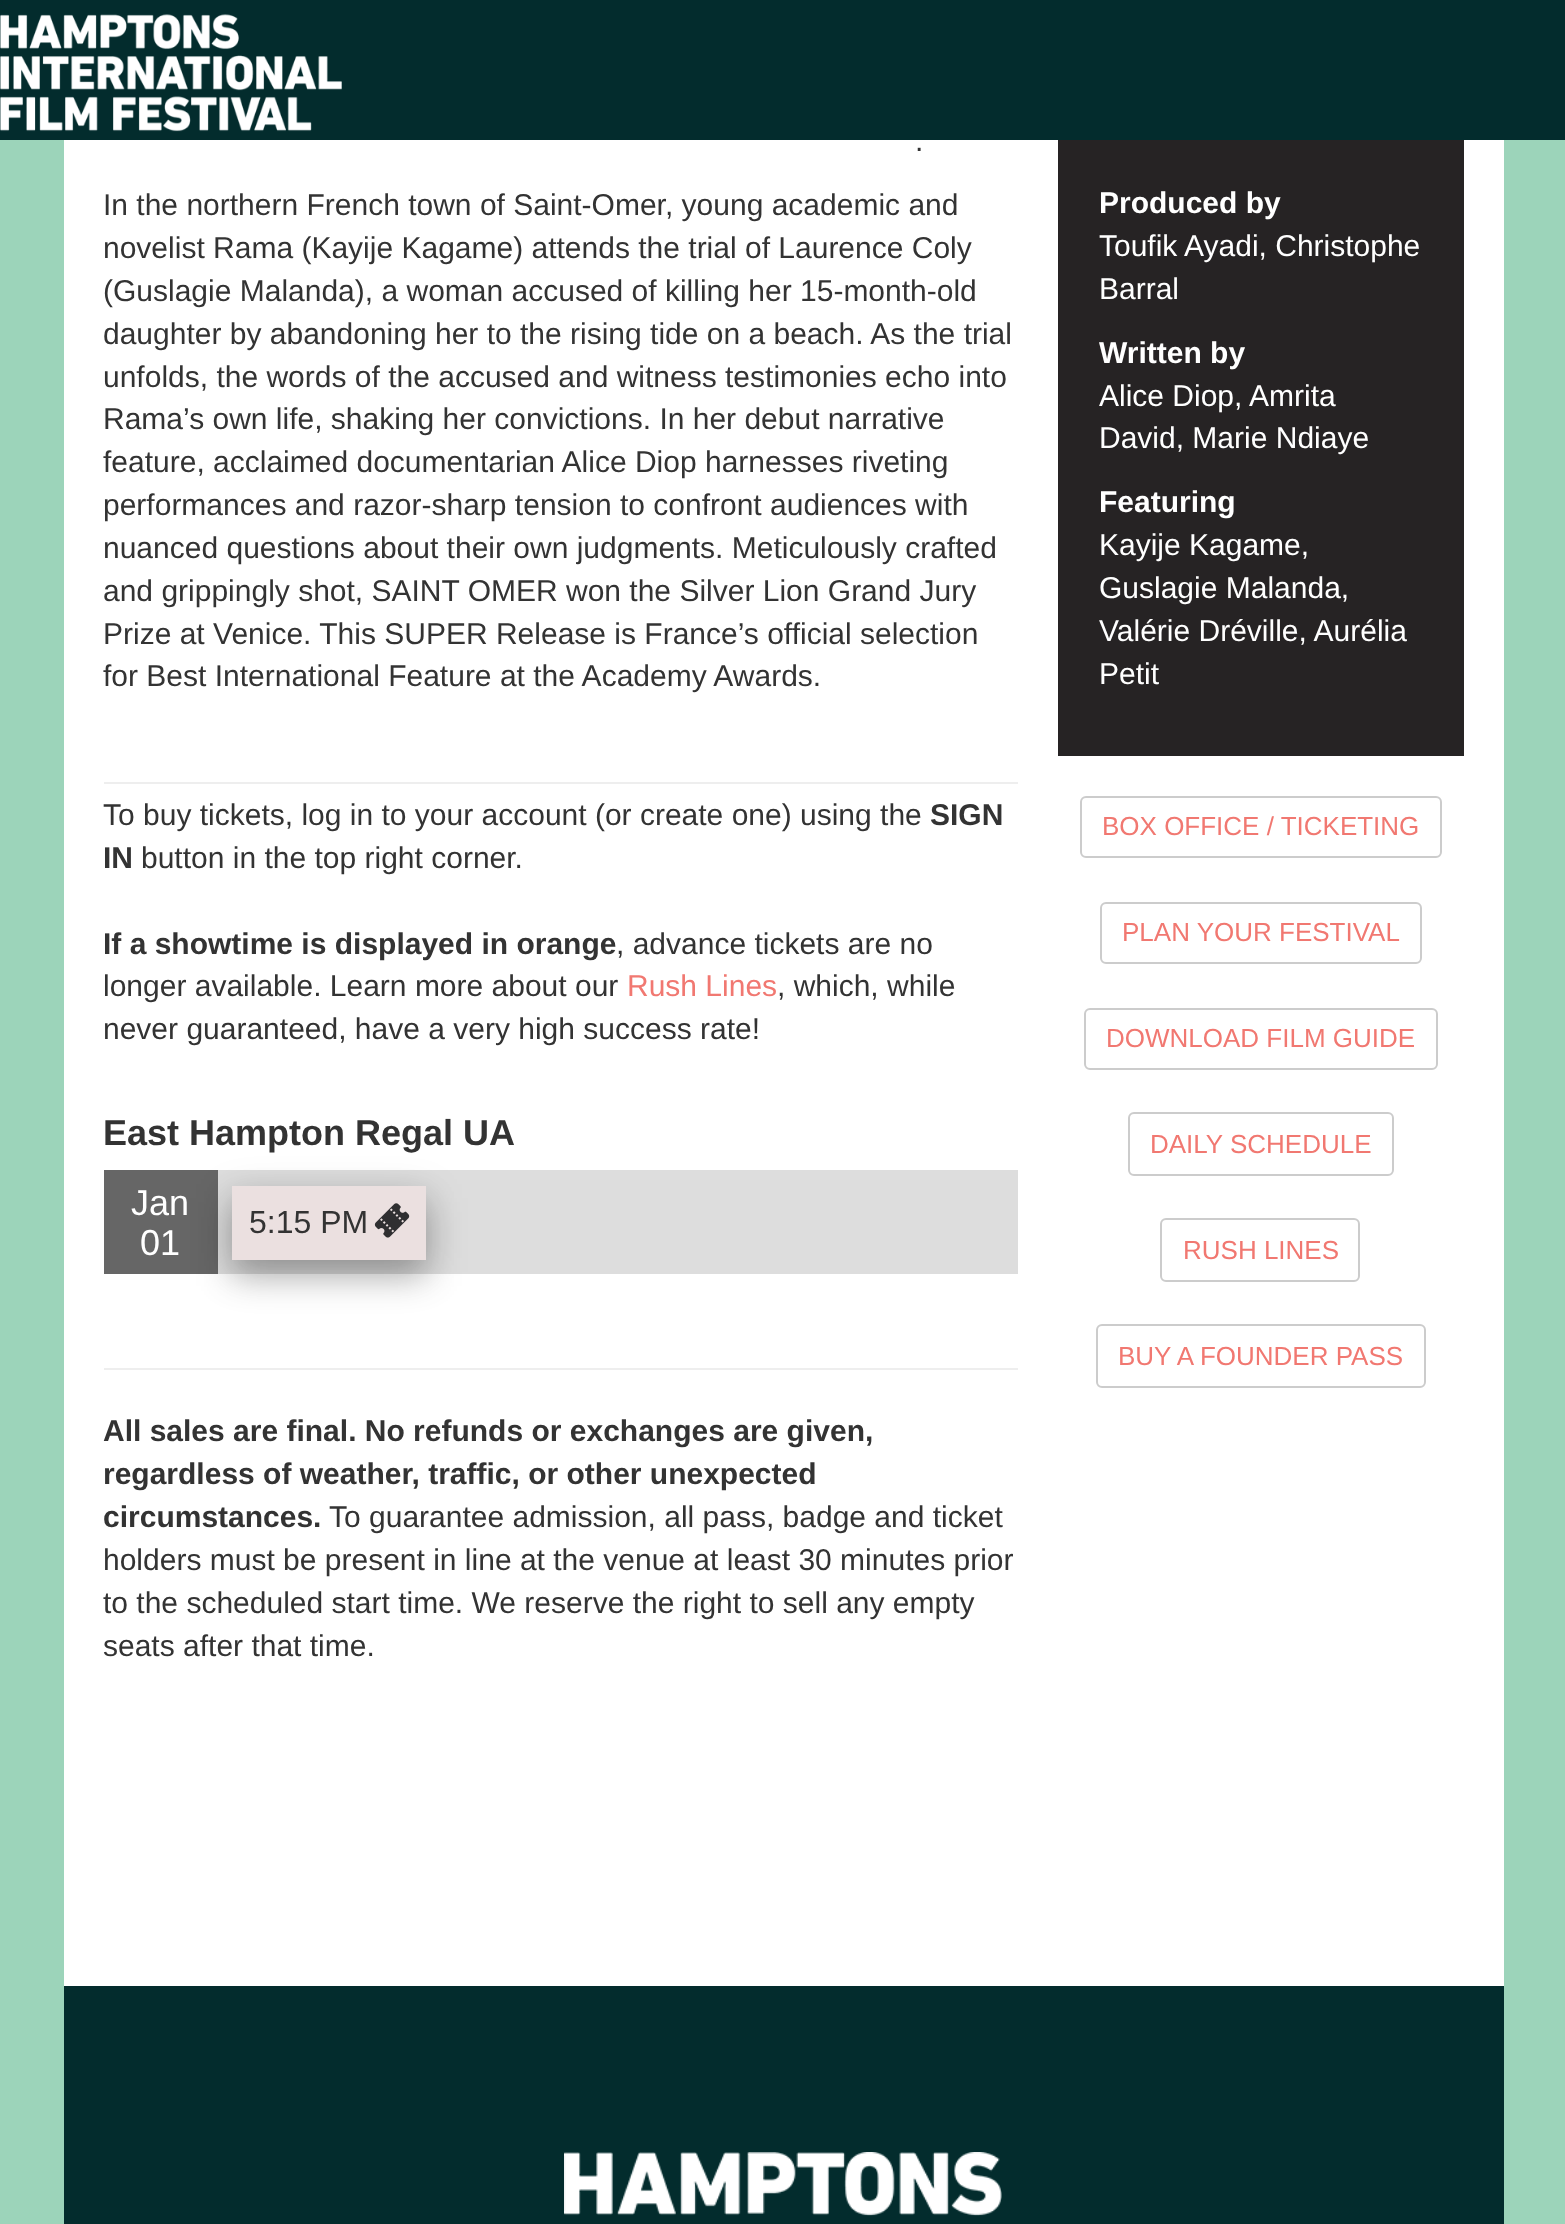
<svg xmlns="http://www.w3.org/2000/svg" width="1565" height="2224">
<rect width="100%" height="100%" fill="#9cd4ba"/>
<rect width="1565" height="140" fill="#032c2d"/>
<image x="0" y="14" width="342" height="118" href="media/1.png"/>
<rect x="64" y="140" width="1440" height="1846" fill="#fff"/>
<text x="915" y="151" style="font-family:Liberation Sans;font-size:30px;fill:#333">.</text>
<text x="103" y="215" style="font-family:Liberation Sans;font-size:30px;fill:#333">In the northern French town of Saint-Omer, young academic and</text>
<text x="103" y="258" style="font-family:Liberation Sans;font-size:30px;fill:#333">novelist Rama (Kayije Kagame) attends the trial of Laurence Coly</text>
<text x="103" y="301" style="font-family:Liberation Sans;font-size:30px;fill:#333">(Guslagie Malanda), a woman accused of killing her 15-month-old</text>
<text x="103" y="344" style="font-family:Liberation Sans;font-size:30px;fill:#333">daughter by abandoning her to the rising tide on a beach. As the trial</text>
<text x="103" y="387" style="font-family:Liberation Sans;font-size:30px;fill:#333">unfolds, the words of the accused and witness testimonies echo into</text>
<text x="103" y="429" style="font-family:Liberation Sans;font-size:30px;fill:#333">Rama’s own life, shaking her convictions. In her debut narrative</text>
<text x="103" y="472" style="font-family:Liberation Sans;font-size:30px;fill:#333">feature, acclaimed documentarian Alice Diop harnesses riveting</text>
<text x="103" y="515" style="font-family:Liberation Sans;font-size:30px;fill:#333">performances and razor-sharp tension to confront audiences with</text>
<text x="103" y="558" style="font-family:Liberation Sans;font-size:30px;fill:#333">nuanced questions about their own judgments. Meticulously crafted</text>
<text x="103" y="601" style="font-family:Liberation Sans;font-size:30px;fill:#333">and grippingly shot, SAINT OMER won the Silver Lion Grand Jury</text>
<text x="103" y="644" style="font-family:Liberation Sans;font-size:30px;fill:#333">Prize at Venice. This SUPER Release is France’s official selection</text>
<text x="103" y="686" style="font-family:Liberation Sans;font-size:30px;fill:#333">for Best International Feature at the Academy Awards.</text>
<rect x="104" y="782" width="914" height="2" fill="#eee"/>
<text x="103" y="825" style="font-family:Liberation Sans;font-size:30px;fill:#333">To buy tickets, log in to your account (or create one) using the</text>
<text x="930" y="825" style="font-family:Liberation Sans;font-size:30px;font-weight:bold;fill:#333">SIGN</text>
<text x="103" y="868" style="font-family:Liberation Sans;font-size:30px;font-weight:bold;fill:#333">IN</text>
<text x="141" y="868" style="font-family:Liberation Sans;font-size:30px;fill:#333">button in the top right corner.</text>
<text x="103" y="954" style="font-family:Liberation Sans;font-size:30px;font-weight:bold;fill:#333">If a showtime is displayed in orange</text>
<text x="616" y="954" style="font-family:Liberation Sans;font-size:30px;fill:#333">, advance tickets are no</text>
<text x="103" y="996" style="font-family:Liberation Sans;font-size:30px;fill:#333">longer available. Learn more about our</text>
<text x="627" y="996" style="font-family:Liberation Sans;font-size:30px;fill:#f17871">Rush Lines</text>
<text x="777" y="996" style="font-family:Liberation Sans;font-size:30px;fill:#333">, which, while</text>
<text x="103" y="1039" style="font-family:Liberation Sans;font-size:30px;fill:#333">never guaranteed, have a very high success rate!</text>
<text x="103" y="1145" style="font-family:Liberation Sans;font-size:36px;font-weight:bold;fill:#333">East Hampton Regal UA</text>
<rect x="218" y="1170" width="800" height="104" fill="#ddd"/>
<rect x="104" y="1170" width="114" height="104" fill="#666"/>
<text x="131" y="1215" style="font-family:Liberation Sans;font-size:36px;fill:#fff">Jan</text>
<text x="140" y="1255" style="font-family:Liberation Sans;font-size:36px;fill:#fff">01</text>
<rect x="232" y="1198" width="194" height="74" fill="#00000030" filter="blur(20px)"/>
<rect x="232" y="1202" width="194" height="74" fill="#00000033" filter="blur(16px)"/>
<rect x="232" y="1186" width="194" height="74" fill="#ebe0e0"/>
<text x="249" y="1233" style="font-family:Liberation Sans;font-size:32px;fill:#333">5:15 PM</text>
<image x="374" y="1203" width="36" height="35" href="media/2.png"/>
<rect x="104" y="1368" width="914" height="2" fill="#eee"/>
<text x="103" y="1441" style="font-family:Liberation Sans;font-size:30px;font-weight:bold;fill:#333">All sales are final. No refunds or exchanges are given,</text>
<text x="103" y="1484" style="font-family:Liberation Sans;font-size:30px;font-weight:bold;fill:#333">regardless of weather, traffic, or other unexpected</text>
<text x="103" y="1527" style="font-family:Liberation Sans;font-size:30px;font-weight:bold;fill:#333">circumstances.</text>
<text x="329" y="1527" style="font-family:Liberation Sans;font-size:30px;fill:#333">To guarantee admission, all pass, badge and ticket</text>
<text x="103" y="1570" style="font-family:Liberation Sans;font-size:30px;fill:#333">holders must be present in line at the venue at least 30 minutes prior</text>
<text x="103" y="1613" style="font-family:Liberation Sans;font-size:30px;fill:#333">to the scheduled start time. We reserve the right to sell any empty</text>
<text x="103" y="1656" style="font-family:Liberation Sans;font-size:30px;fill:#333">seats after that time.</text>
<rect x="1058" y="140" width="406" height="616" fill="#262324"/>
<text x="1099" y="213" style="font-family:Liberation Sans;font-size:30px;font-weight:bold;fill:#fff">Produced by</text>
<text x="1099" y="256" style="font-family:Liberation Sans;font-size:30px;fill:#fff">Toufik Ayadi, Christophe</text>
<text x="1099" y="299" style="font-family:Liberation Sans;font-size:30px;fill:#fff">Barral</text>
<text x="1099" y="363" style="font-family:Liberation Sans;font-size:30px;font-weight:bold;fill:#fff">Written by</text>
<text x="1099" y="406" style="font-family:Liberation Sans;font-size:30px;fill:#fff">Alice Diop, Amrita</text>
<text x="1099" y="448" style="font-family:Liberation Sans;font-size:30px;fill:#fff">David, Marie Ndiaye</text>
<text x="1099" y="512" style="font-family:Liberation Sans;font-size:30px;font-weight:bold;fill:#fff">Featuring</text>
<text x="1099" y="555" style="font-family:Liberation Sans;font-size:30px;fill:#fff">Kayije Kagame,</text>
<text x="1099" y="598" style="font-family:Liberation Sans;font-size:30px;fill:#fff">Guslagie Malanda,</text>
<text x="1099" y="641" style="font-family:Liberation Sans;font-size:30px;fill:#fff">Valérie Dréville, Aurélia</text>
<text x="1099" y="684" style="font-family:Liberation Sans;font-size:30px;fill:#fff">Petit</text>
<rect x="1081" y="797" width="360" height="60" rx="5" fill="none" stroke="#ccc" stroke-width="2"/>
<text x="1102" y="835" style="font-family:Liberation Sans;font-size:26px;fill:#f17871">BOX OFFICE / TICKETING</text>
<rect x="1101" y="903" width="320" height="60" rx="5" fill="none" stroke="#ccc" stroke-width="2"/>
<text x="1122" y="941" style="font-family:Liberation Sans;font-size:26px;fill:#f17871">PLAN YOUR FESTIVAL</text>
<rect x="1085" y="1009" width="352" height="60" rx="5" fill="none" stroke="#ccc" stroke-width="2"/>
<text x="1106" y="1047" style="font-family:Liberation Sans;font-size:26px;fill:#f17871">DOWNLOAD FILM GUIDE</text>
<rect x="1129" y="1113" width="264" height="62" rx="5" fill="none" stroke="#ccc" stroke-width="2"/>
<text x="1150" y="1153" style="font-family:Liberation Sans;font-size:26px;fill:#f17871">DAILY SCHEDULE</text>
<rect x="1161" y="1219" width="198" height="62" rx="5" fill="none" stroke="#ccc" stroke-width="2"/>
<text x="1183" y="1259" style="font-family:Liberation Sans;font-size:26px;fill:#f17871">RUSH LINES</text>
<rect x="1097" y="1325" width="328" height="62" rx="5" fill="none" stroke="#ccc" stroke-width="2"/>
<text x="1118" y="1365" style="font-family:Liberation Sans;font-size:26px;fill:#f17871">BUY A FOUNDER PASS</text>
<rect x="64" y="1986" width="1440" height="238" fill="#032c2d"/>
<image x="564" y="2152" width="438" height="64" href="media/3.png"/>
</svg>
